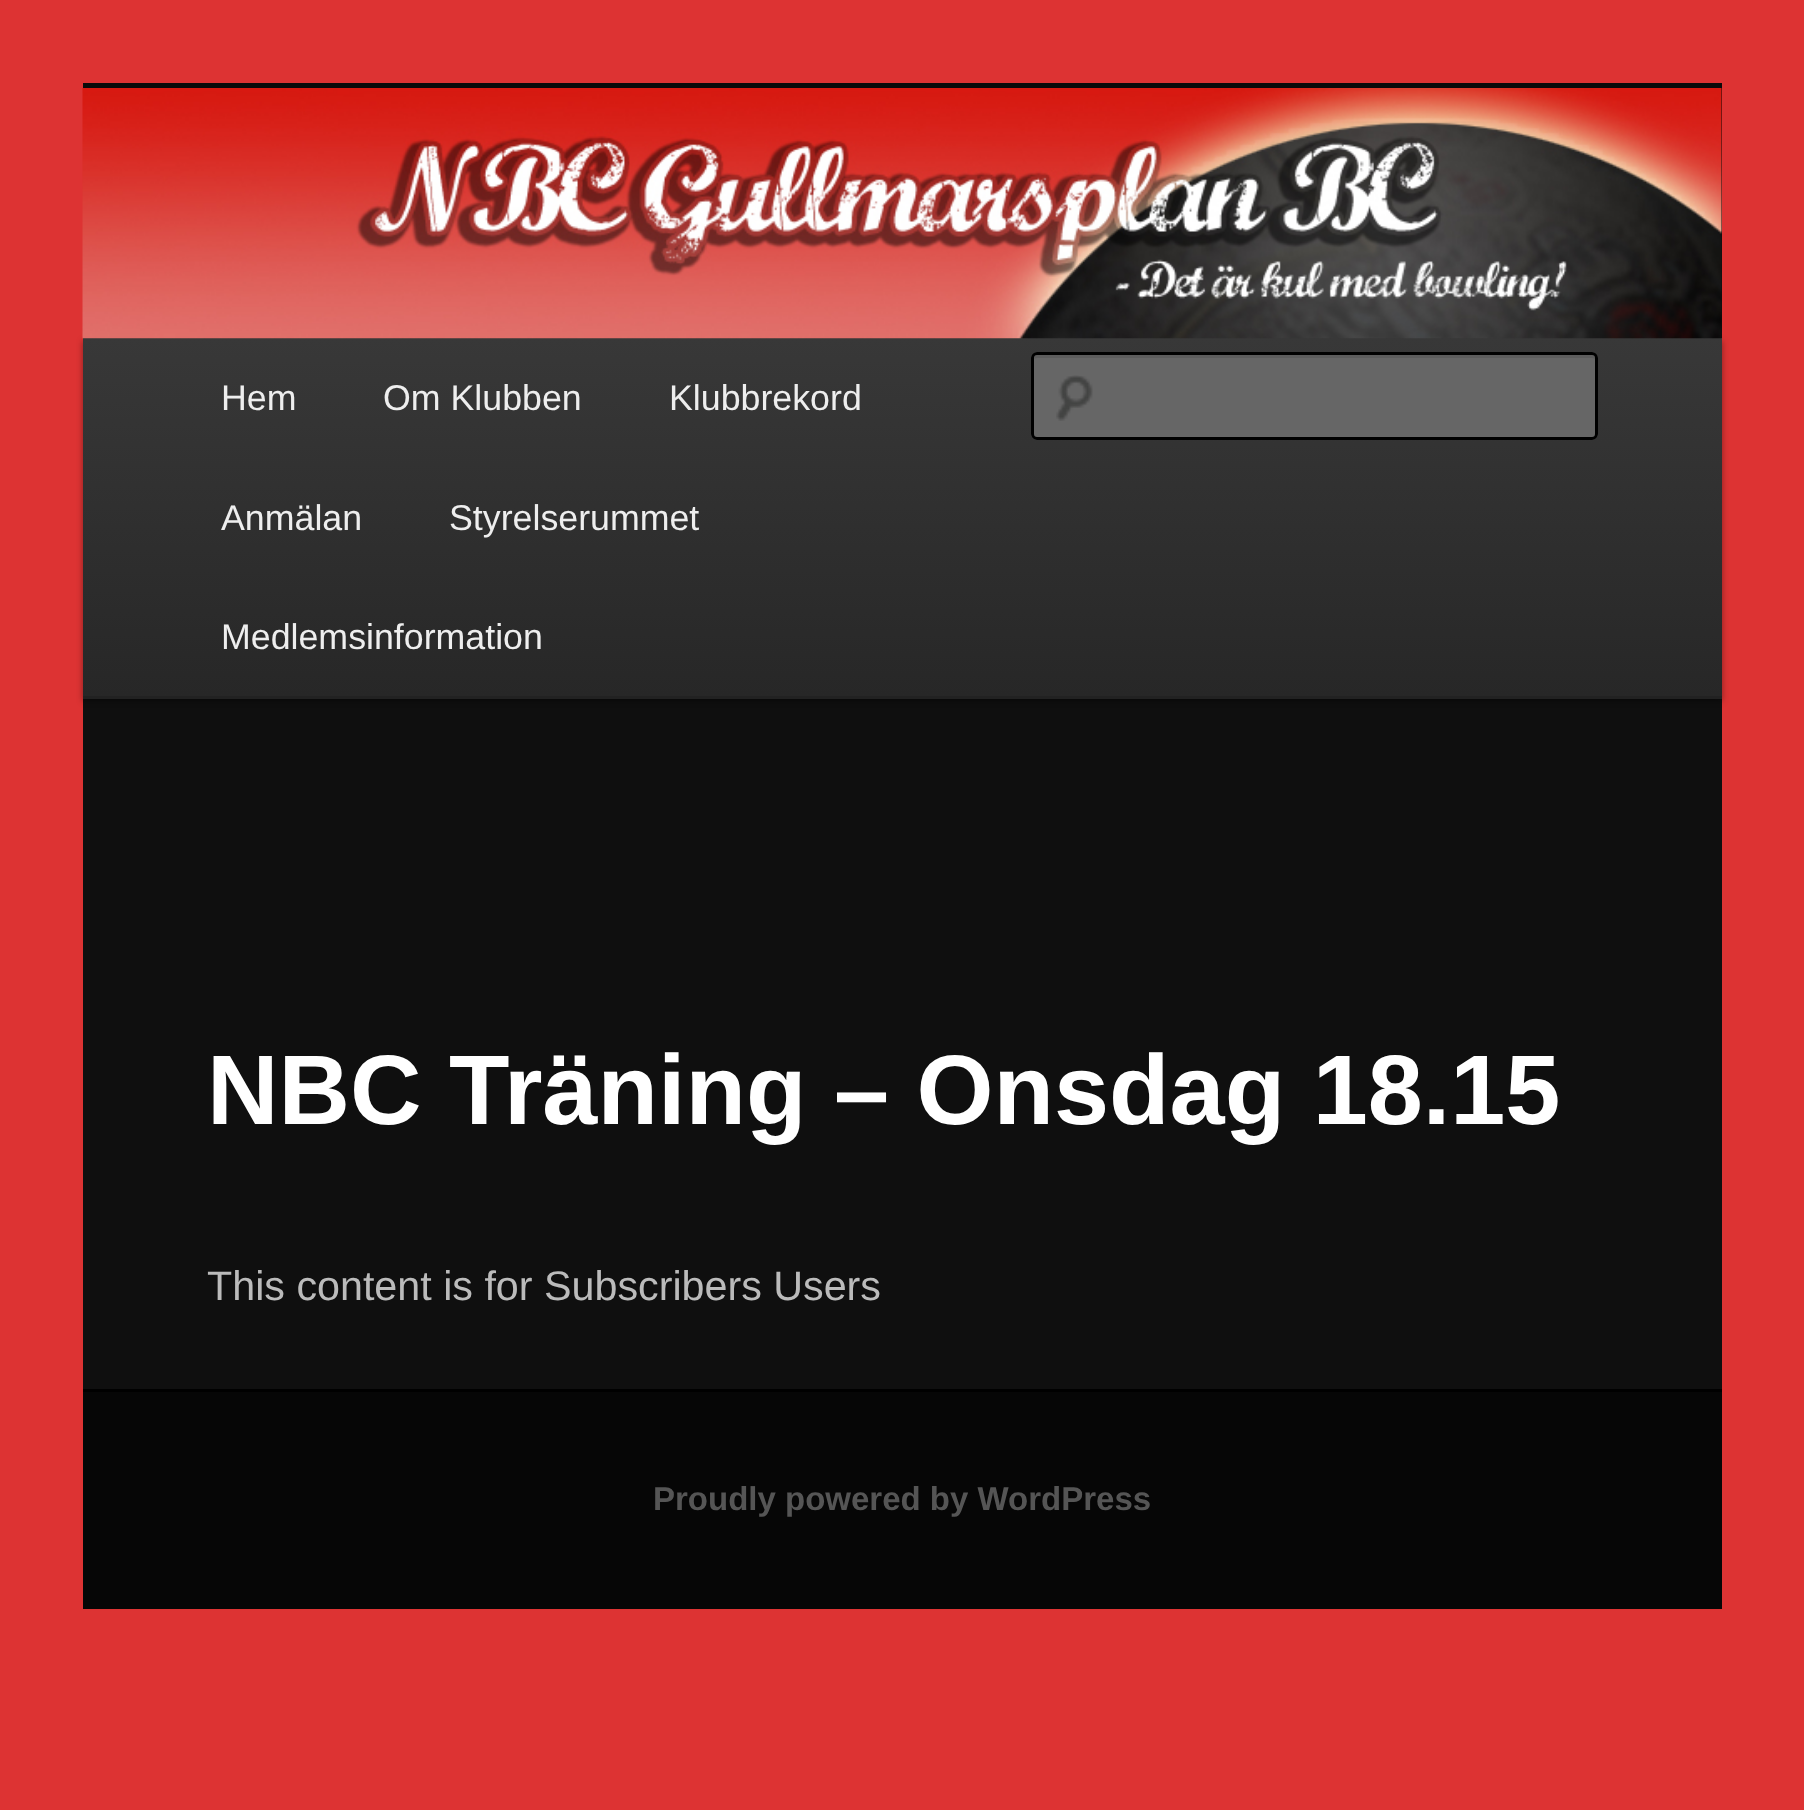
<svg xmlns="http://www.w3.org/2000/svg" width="1804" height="1810">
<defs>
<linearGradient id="g1" gradientUnits="userSpaceOnUse" x1="902" y1="338" x2="902" y2="696"><stop offset="0" stop-color="#383838"/><stop offset="1" stop-color="#272727"/></linearGradient>
</defs>
<rect width="100%" height="100%" fill="#d33"/>
<rect x="83" y="89" width="1639" height="1300" fill="#0f0f0f"/>
<rect x="83" y="83" width="1639" height="6" fill="#0a0a0a"/>
<rect x="83" y="341" width="1639" height="360" fill="#00000066" filter="blur(3px)"/>
<rect x="83" y="338" width="1639" height="358" fill="url(#g1)"/>
<image x="82" y="88" width="1640" height="251" href="media/1.png"/>
<rect x="83" y="696" width="1639" height="3" fill="#222"/>
<text x="221" y="410" style="font-family:Liberation Sans;font-size:35.75px;fill:#eee">Hem</text>
<text x="383" y="410" style="font-family:Liberation Sans;font-size:35.75px;fill:#eee">Om Klubben</text>
<text x="669" y="410" style="font-family:Liberation Sans;font-size:35.75px;fill:#eee">Klubbrekord</text>
<text x="221" y="530" style="font-family:Liberation Sans;font-size:35.75px;fill:#eee">Anmälan</text>
<text x="449" y="530" style="font-family:Liberation Sans;font-size:35.75px;fill:#eee">Styrelserummet</text>
<text x="221" y="649" style="font-family:Liberation Sans;font-size:35.75px;fill:#eee">Medlemsinformation</text>
<rect x="1031" y="352" width="567" height="88" rx="6" fill="#666"/>
<image x="1056" y="375" width="37" height="46" href="media/2.png"/>
<path d="M1037 358h555c2 0 3 1 3 2c0-2 0-5-3-5h-555l-2 1l-1 4c0-1 1-2 3-2z" fill="#5c5c5c"/>
<rect x="1032.5" y="353.5" width="564" height="85" rx="4.5" fill="none" stroke="#000" stroke-width="3"/>
<text x="207" y="1124" style="font-family:Liberation Sans;font-size:99px;font-weight:bold;fill:#fff">NBC Träning – Onsdag 18.15</text>
<text x="207" y="1300" style="font-family:Liberation Sans;font-size:41.25px;fill:#bbb">This content is for Subscribers Users</text>
<rect x="83" y="1392" width="1639" height="217" fill="#060606"/>
<rect x="83" y="1389" width="1639" height="3" fill="#000"/>
<text x="653" y="1510" style="font-family:Liberation Sans;font-size:33px;font-weight:bold;fill:#555">Proudly powered by WordPress</text>
</svg>
